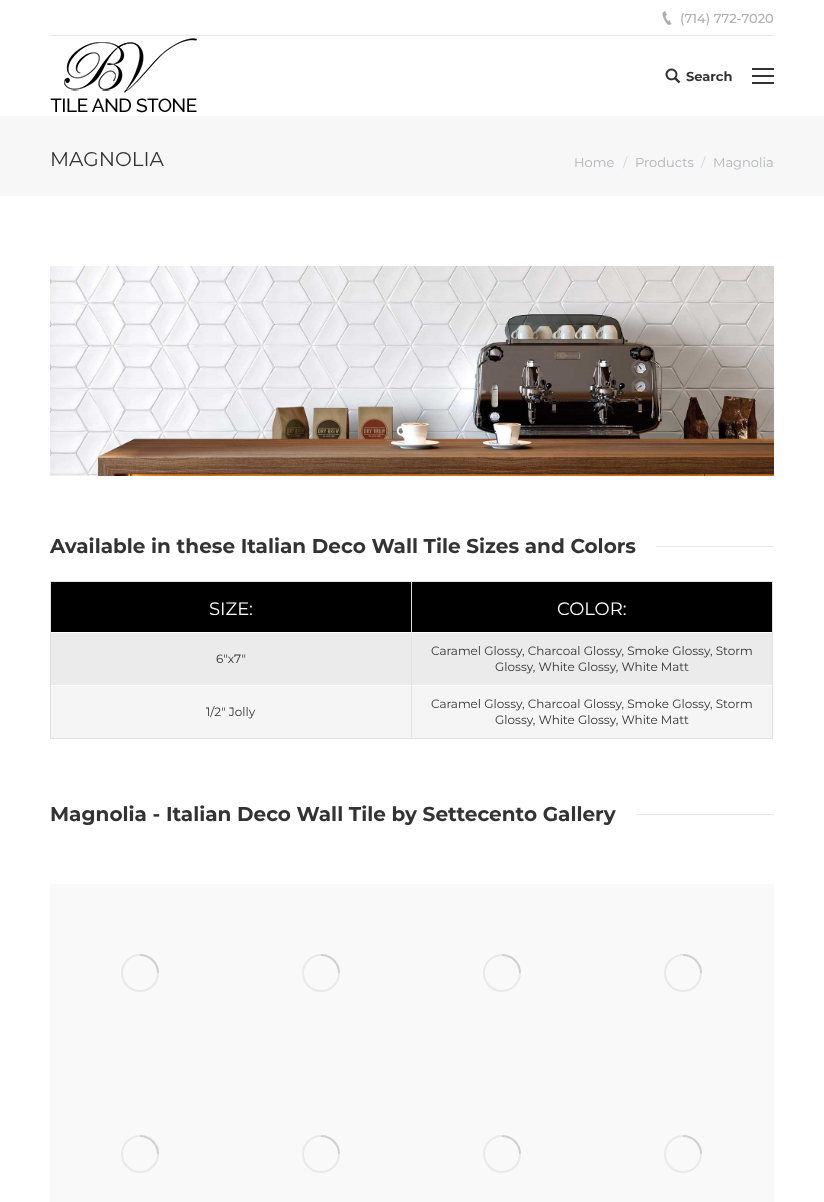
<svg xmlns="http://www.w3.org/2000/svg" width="824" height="1202">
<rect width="100%" height="100%" fill="#fff"/>
<image x="662" y="11" width="10" height="14" href="media/1.png"/>
<text x="680" y="23" style="font-family:Montserrat;font-size:13px;font-weight:500;fill:#aeafb5">(714) 772-7020</text>
<rect x="50" y="35" width="724" height="1" fill="#e7e7e7"/>
<image x="50" y="38" width="147" height="75" href="media/2.png"/>
<image x="665" y="68" width="16" height="16" href="media/3.png"/>
<text x="686" y="81" style="font-family:Montserrat;font-size:13px;font-weight:bold;fill:#333">Search</text>
<rect x="752" y="75" width="22" height="2" fill="#333"/>
<rect x="752" y="68" width="22" height="2" fill="#333"/>
<rect x="752" y="82" width="22" height="2" fill="#333"/>
<rect y="116" width="824" height="80" fill="#f7f7f7"/>
<text x="50" y="166" style="font-family:Montserrat;font-size:20px;fill:#333">MAGNOLIA</text>
<text x="574" y="167" style="font-family:Montserrat;font-size:13px;fill:#b4b5bb">Home</text>
<text x="623" y="167" style="font-family:Montserrat;font-size:13px;fill:#d6d6d9">/</text>
<text x="635" y="167" style="font-family:Montserrat;font-size:13px;fill:#b4b5bb">Products</text>
<text x="701" y="167" style="font-family:Montserrat;font-size:13px;fill:#d6d6d9">/</text>
<text x="713" y="167" style="font-family:Montserrat;font-size:13px;fill:#b4b5bb">Magnolia</text>
<image x="50" y="266" width="724" height="210" href="media/4.png"/>
<text x="50" y="553" style="font-family:Montserrat;font-size:20px;font-weight:bold;fill:#333">Available in these Italian Deco Wall Tile Sizes and Colors</text>
<rect x="656" y="546" width="118" height="1" fill="#e7e7e7"/>
<rect x="50.5" y="581.5" width="361" height="157" fill="none" stroke="#e2e2e2"/>
<rect x="51" y="582" width="360" height="50" fill="#000"/>
<text x="209" y="615" style="font-family:Montserrat;font-size:18px;fill:#fff">SIZE:</text>
<rect x="51" y="633" width="360" height="52" fill="#ebebeb"/>
<text x="216" y="663" style="font-family:Montserrat;font-size:12px;fill:#333">6"x7"</text>
<rect x="51" y="686" width="360" height="52" fill="#f5f5f5"/>
<text x="206" y="716" style="font-family:Montserrat;font-size:12px;fill:#333">1/2" Jolly</text>
<rect x="411.5" y="581.5" width="361" height="157" fill="none" stroke="#e2e2e2"/>
<rect x="412" y="582" width="360" height="50" fill="#000"/>
<text x="557" y="615" style="font-family:Montserrat;font-size:18px;fill:#fff">COLOR:</text>
<rect x="412" y="633" width="360" height="52" fill="#ebebeb"/>
<text x="431" y="655" style="font-family:Montserrat;font-size:12px;fill:#333">Caramel Glossy, Charcoal Glossy, Smoke Glossy, Storm</text>
<text x="495" y="671" style="font-family:Montserrat;font-size:12px;fill:#333">Glossy, White Glossy, White Matt</text>
<rect x="412" y="686" width="360" height="52" fill="#f5f5f5"/>
<text x="431" y="708" style="font-family:Montserrat;font-size:12px;fill:#333">Caramel Glossy, Charcoal Glossy, Smoke Glossy, Storm</text>
<text x="495" y="724" style="font-family:Montserrat;font-size:12px;fill:#333">Glossy, White Glossy, White Matt</text>
<text x="50" y="821" style="font-family:Montserrat;font-size:20px;font-weight:bold;fill:#333">Magnolia - Italian Deco Wall Tile by Settecento Gallery</text>
<rect x="636" y="814" width="138" height="1" fill="#e7e7e7"/>
<rect x="50" y="884" width="724" height="181" fill="#f9f9f9"/>
<circle cx="140" cy="973" r="18" fill="none" stroke="#e9e9ea" stroke-width="2"/>
<path d="M158 973c0-10-8-18-18-18" fill="none" stroke="#85868c40" stroke-width="2"/>
<circle cx="321" cy="973" r="18" fill="none" stroke="#e9e9ea" stroke-width="2"/>
<path d="M339 973c0-10-8-18-18-18" fill="none" stroke="#85868c40" stroke-width="2"/>
<circle cx="502" cy="973" r="18" fill="none" stroke="#e9e9ea" stroke-width="2"/>
<path d="M520 973c0-10-8-18-18-18" fill="none" stroke="#85868c40" stroke-width="2"/>
<circle cx="683" cy="973" r="18" fill="none" stroke="#e9e9ea" stroke-width="2"/>
<path d="M701 973c0-10-8-18-18-18" fill="none" stroke="#85868c40" stroke-width="2"/>
<rect x="50" y="1065" width="724" height="137" fill="#f9f9f9"/>
<circle cx="140" cy="1154" r="18" fill="none" stroke="#e9e9ea" stroke-width="2"/>
<path d="M158 1154c0-10-8-18-18-18" fill="none" stroke="#85868c40" stroke-width="2"/>
<circle cx="321" cy="1154" r="18" fill="none" stroke="#e9e9ea" stroke-width="2"/>
<path d="M339 1154c0-10-8-18-18-18" fill="none" stroke="#85868c40" stroke-width="2"/>
<circle cx="502" cy="1154" r="18" fill="none" stroke="#e9e9ea" stroke-width="2"/>
<path d="M520 1154c0-10-8-18-18-18" fill="none" stroke="#85868c40" stroke-width="2"/>
<circle cx="683" cy="1154" r="18" fill="none" stroke="#e9e9ea" stroke-width="2"/>
<path d="M701 1154c0-10-8-18-18-18" fill="none" stroke="#85868c40" stroke-width="2"/>
</svg>
